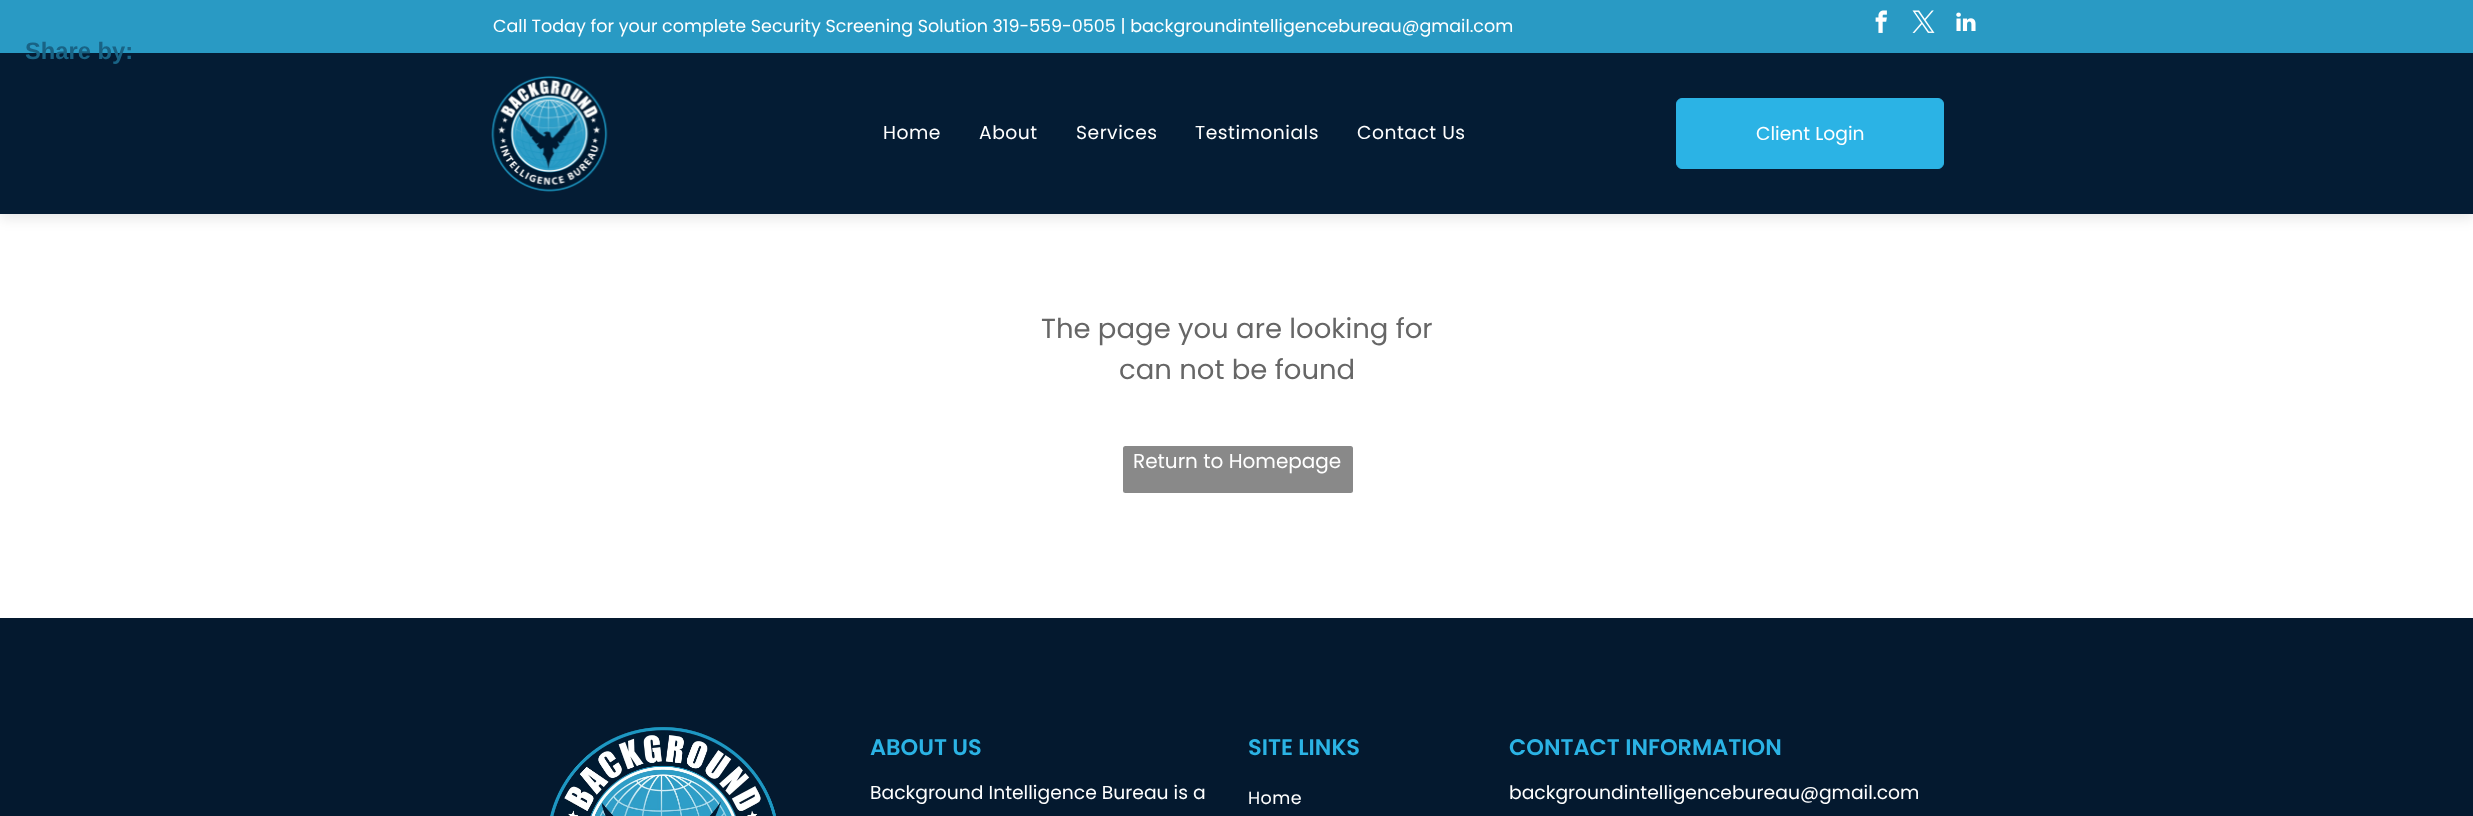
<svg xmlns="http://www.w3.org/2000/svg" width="2473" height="816">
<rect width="100%" height="100%" fill="#fff"/>
<rect y="4" width="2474" height="214" fill="#0000001a" filter="blur(7px)"/>
<rect y="53" width="2473" height="161" fill="#041c34"/>
<rect width="2473" height="53" fill="#299ac4"/>
<text x="25" y="59" style="font-family:Liberation Sans;font-size:23.75px;font-weight:bold;fill:#196385">Share by:</text>
<text x="493" y="32" style="font-family:Poppins;font-size:17.5px;fill:#fff">Call Today for your complete Security Screening Solution 319-559-0505 | backgroundintelligencebureau@gmail.com</text>
<image x="1875" y="10" width="12" height="23" href="media/1.png"/>
<image x="1912" y="10" width="23" height="23" href="media/2.png"/>
<image x="1956" y="12" width="20" height="19" href="media/3.png"/>
<image x="491" y="75" width="117" height="117" href="media/4.png"/>
<text x="883" y="139" style="font-family:Poppins;font-size:18.75px;letter-spacing:0.5px;fill:#fff">Home</text>
<text x="979" y="139" style="font-family:Poppins;font-size:18.75px;letter-spacing:0.5px;fill:#fff">About</text>
<text x="1076" y="139" style="font-family:Poppins;font-size:18.75px;letter-spacing:0.5px;fill:#fff">Services</text>
<text x="1195" y="139" style="font-family:Poppins;font-size:18.75px;letter-spacing:0.5px;fill:#fff">Testimonials</text>
<text x="1357" y="139" style="font-family:Poppins;font-size:18.75px;letter-spacing:0.5px;fill:#fff">Contact Us</text>
<rect x="1676.5" y="98.5" width="267" height="70" rx="5.5" fill="#2bb3e5" stroke="#2bb3e5"/>
<text x="1756" y="140" style="font-family:Poppins;font-size:18.75px;fill:#fff">Client Login</text>
<text x="1041" y="338" style="font-family:Poppins;font-size:27.5px;fill:#666">The page you are looking for</text>
<text x="1119" y="379" style="font-family:Poppins;font-size:27.5px;fill:#666">can not be found</text>
<rect x="1123" y="446" width="230" height="47" rx="2.5" fill="#898989"/>
<text x="1133" y="468" style="font-family:Poppins;font-size:20px;fill:#fff">Return to Homepage</text>
<rect y="618" width="2473" height="198" fill="#04192f"/>
<image x="550" y="727" width="226" height="89" href="media/5.png"/>
<text x="870" y="755" style="font-family:Poppins;font-size:22.5px;font-weight:600;fill:#2bb3e5">ABOUT US</text>
<text x="870" y="799" style="font-family:Poppins;font-size:18.75px;fill:#fff">Background Intelligence Bureau is a</text>
<text x="1248" y="755" style="font-family:Poppins;font-size:22.5px;font-weight:600;fill:#2bb3e5">SITE LINKS</text>
<text x="1248" y="804" style="font-family:Poppins;font-size:17.5px;letter-spacing:0.5px;fill:#fff">Home</text>
<text x="1509" y="755" style="font-family:Poppins;font-size:22.5px;font-weight:600;fill:#2bb3e5">CONTACT INFORMATION</text>
<text x="1509" y="799" style="font-family:Poppins;font-size:18.75px;fill:#fff">backgroundintelligencebureau@gmail.com</text>
</svg>
